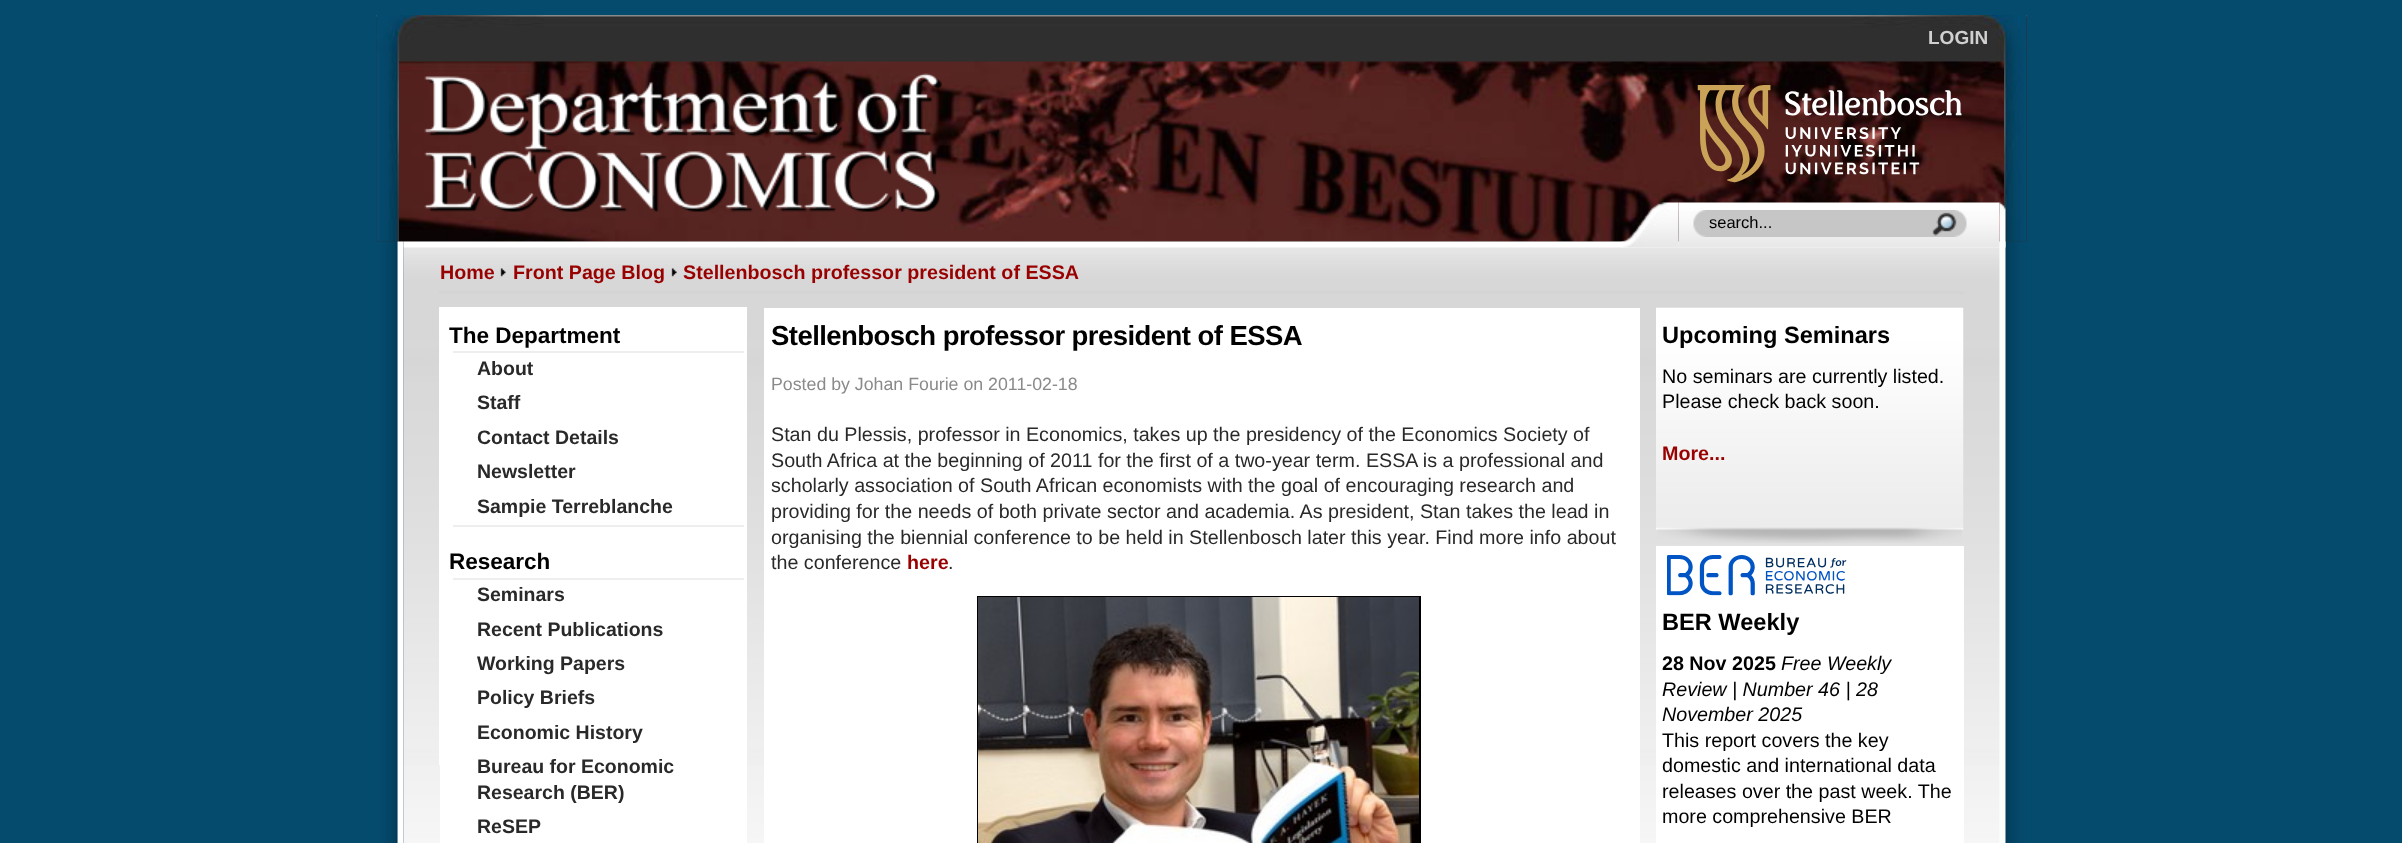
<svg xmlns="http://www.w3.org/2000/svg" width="2402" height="843">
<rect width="100%" height="100%" fill="#054b6e"/>
<rect x="377" y="15" width="1650" height="227" fill="#2f2f2f"/>
<image x="376" y="15" width="1651" height="227" href="media/1.png"/>
<image x="376" y="15" width="168" height="227" href="media/2.png"/>
<image x="1852" y="15" width="175" height="227" href="media/3.png"/>
<image x="399" y="61" width="1605" height="181" href="media/4.png"/>
<text x="1928" y="44" style="font-family:Liberation Sans;font-size:19px;font-weight:bold;fill:#d0d0d0">LOGIN</text>
<image x="424" y="73" width="518" height="139" href="media/5.png"/>
<image x="1697" y="85" width="265" height="98" href="media/6.png"/>
<image x="377" y="241" width="27" height="602" href="media/7.png"/>
<image x="1999" y="241" width="28" height="602" href="media/8.png"/>
<rect x="1999" y="242" width="1" height="601" fill="#fff"/>
<image x="403" y="241" width="1597" height="602" href="media/9.png"/>
<image x="1621" y="202" width="58" height="46" href="media/10.png"/>
<image x="1999" y="202" width="7" height="46" href="media/11.png"/>
<image x="1678" y="202" width="322" height="46" href="media/12.png"/>
<image x="1693" y="210" width="274" height="27" href="media/13.png"/>
<text x="1709" y="228" style="font-family:Liberation Sans;font-size:16.5px;fill:#000">search...</text>
<rect x="439" y="291" width="1525" height="3" fill="#d4d4d4"/>
<text x="440" y="279" style="font-family:Liberation Sans;font-size:19.7px;font-weight:bold;fill:#900">Home</text>
<image x="500" y="268" width="6" height="9" href="media/14.png"/>
<text x="513" y="279" style="font-family:Liberation Sans;font-size:19.7px;font-weight:bold;fill:#900">Front Page Blog</text>
<image x="671" y="268" width="6" height="9" href="media/15.png"/>
<text x="683" y="279" style="font-family:Liberation Sans;font-size:19.7px;font-weight:bold;fill:#900">Stellenbosch professor president of ESSA</text>
<rect x="440" y="765" width="307" height="78" fill="#fff"/>
<rect x="439" y="307" width="308" height="458" fill="#fff"/>
<text x="449" y="343" style="font-family:Liberation Sans;font-size:22.5px;font-weight:bold;fill:#000">The Department</text>
<rect x="453" y="351" width="291" height="2" fill="#eee"/>
<rect x="453" y="525" width="291" height="2" fill="#eee"/>
<text x="477" y="375" style="font-family:Liberation Sans;font-size:19.5px;font-weight:bold;fill:#2a2929">About</text>
<text x="477" y="409" style="font-family:Liberation Sans;font-size:19.5px;font-weight:bold;fill:#2a2929">Staff</text>
<text x="477" y="444" style="font-family:Liberation Sans;font-size:19.5px;font-weight:bold;fill:#2a2929">Contact Details</text>
<text x="477" y="478" style="font-family:Liberation Sans;font-size:19.5px;font-weight:bold;fill:#2a2929">Newsletter</text>
<text x="477" y="513" style="font-family:Liberation Sans;font-size:19.5px;font-weight:bold;fill:#2a2929">Sampie Terreblanche</text>
<text x="449" y="569" style="font-family:Liberation Sans;font-size:22.5px;font-weight:bold;fill:#000">Research</text>
<rect x="453" y="578" width="291" height="2" fill="#eee"/>
<text x="477" y="601" style="font-family:Liberation Sans;font-size:19.5px;font-weight:bold;fill:#2a2929">Seminars</text>
<text x="477" y="636" style="font-family:Liberation Sans;font-size:19.5px;font-weight:bold;fill:#2a2929">Recent Publications</text>
<text x="477" y="670" style="font-family:Liberation Sans;font-size:19.5px;font-weight:bold;fill:#2a2929">Working Papers</text>
<text x="477" y="704" style="font-family:Liberation Sans;font-size:19.5px;font-weight:bold;fill:#2a2929">Policy Briefs</text>
<text x="477" y="739" style="font-family:Liberation Sans;font-size:19.5px;font-weight:bold;fill:#2a2929">Economic History</text>
<text x="477" y="773" style="font-family:Liberation Sans;font-size:19.5px;font-weight:bold;fill:#2a2929">Bureau for Economic</text>
<text x="477" y="799" style="font-family:Liberation Sans;font-size:19.5px;font-weight:bold;fill:#2a2929">Research (BER)</text>
<text x="477" y="833" style="font-family:Liberation Sans;font-size:19.5px;font-weight:bold;fill:#2a2929">ReSEP</text>
<rect x="764" y="308" width="876" height="535" fill="#fff"/>
<text x="771" y="345" style="font-family:Liberation Sans;font-size:27.5px;font-weight:bold;letter-spacing:-0.55px;fill:#000">Stellenbosch professor president of ESSA</text>
<text x="771" y="390" style="font-family:Liberation Sans;font-size:17.75px;fill:#8a8a8a">Posted by Johan Fourie on 2011-02-18</text>
<text x="771" y="441" style="font-family:Liberation Sans;font-size:19.7px;fill:#2a2929">Stan du Plessis, professor in Economics, takes up the presidency of the Economics Society of</text>
<text x="771" y="467" style="font-family:Liberation Sans;font-size:19.7px;fill:#2a2929">South Africa at the beginning of 2011 for the first of a two-year term. ESSA is a professional and</text>
<text x="771" y="492" style="font-family:Liberation Sans;font-size:19.7px;fill:#2a2929">scholarly association of South African economists with the goal of encouraging research and</text>
<text x="771" y="518" style="font-family:Liberation Sans;font-size:19.7px;fill:#2a2929">providing for the needs of both private sector and academia. As president, Stan takes the lead in</text>
<text x="771" y="544" style="font-family:Liberation Sans;font-size:19.7px;fill:#2a2929">organising the biennial conference to be held in Stellenbosch later this year. Find more info about</text>
<text x="771" y="569" style="font-family:Liberation Sans;font-size:19.7px;fill:#2a2929">the conference</text>
<text x="907" y="569" style="font-family:Liberation Sans;font-size:19.7px;font-weight:bold;fill:#900">here</text>
<text x="948" y="569" style="font-family:Liberation Sans;font-size:19.7px;fill:#2a2929">.</text>
<rect x="978" y="597" width="442" height="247" fill="none" stroke="#000" stroke-width="2"/>
<image x="978" y="597" width="441" height="246" href="media/16.png"/>
<image x="1656" y="307" width="308" height="236" href="media/17.png"/>
<text x="1662" y="343" style="font-family:Liberation Sans;font-size:23.6px;font-weight:bold;fill:#000">Upcoming Seminars</text>
<text x="1662" y="383" style="font-family:Liberation Sans;font-size:19.7px;fill:#000">No seminars are currently listed.</text>
<text x="1662" y="408" style="font-family:Liberation Sans;font-size:19.7px;fill:#000">Please check back soon.</text>
<text x="1662" y="460" style="font-family:Liberation Sans;font-size:19.7px;font-weight:bold;fill:#900">More...</text>
<rect x="1656" y="546" width="308" height="297" fill="#fff"/>
<image x="1667" y="555" width="180" height="41" href="media/18.png"/>
<text x="1662" y="630" style="font-family:Liberation Sans;font-size:23.6px;font-weight:bold;fill:#000">BER Weekly</text>
<text x="1662" y="670" style="font-family:Liberation Sans;font-size:19.7px;font-weight:bold;fill:#000">28 Nov 2025</text>
<text x="1781" y="670" style="font-family:Liberation Sans;font-size:19.7px;font-style:italic;fill:#000">Free Weekly</text>
<text x="1662" y="696" style="font-family:Liberation Sans;font-size:19.7px;font-style:italic;fill:#000">Review | Number 46 | 28</text>
<text x="1662" y="721" style="font-family:Liberation Sans;font-size:19.7px;font-style:italic;fill:#000">November 2025</text>
<text x="1662" y="747" style="font-family:Liberation Sans;font-size:19.7px;fill:#000">This report covers the key</text>
<text x="1662" y="772" style="font-family:Liberation Sans;font-size:19.7px;fill:#000">domestic and international data</text>
<text x="1662" y="798" style="font-family:Liberation Sans;font-size:19.7px;fill:#000">releases over the past week. The</text>
<text x="1662" y="823" style="font-family:Liberation Sans;font-size:19.7px;fill:#000">more comprehensive BER</text>
</svg>
